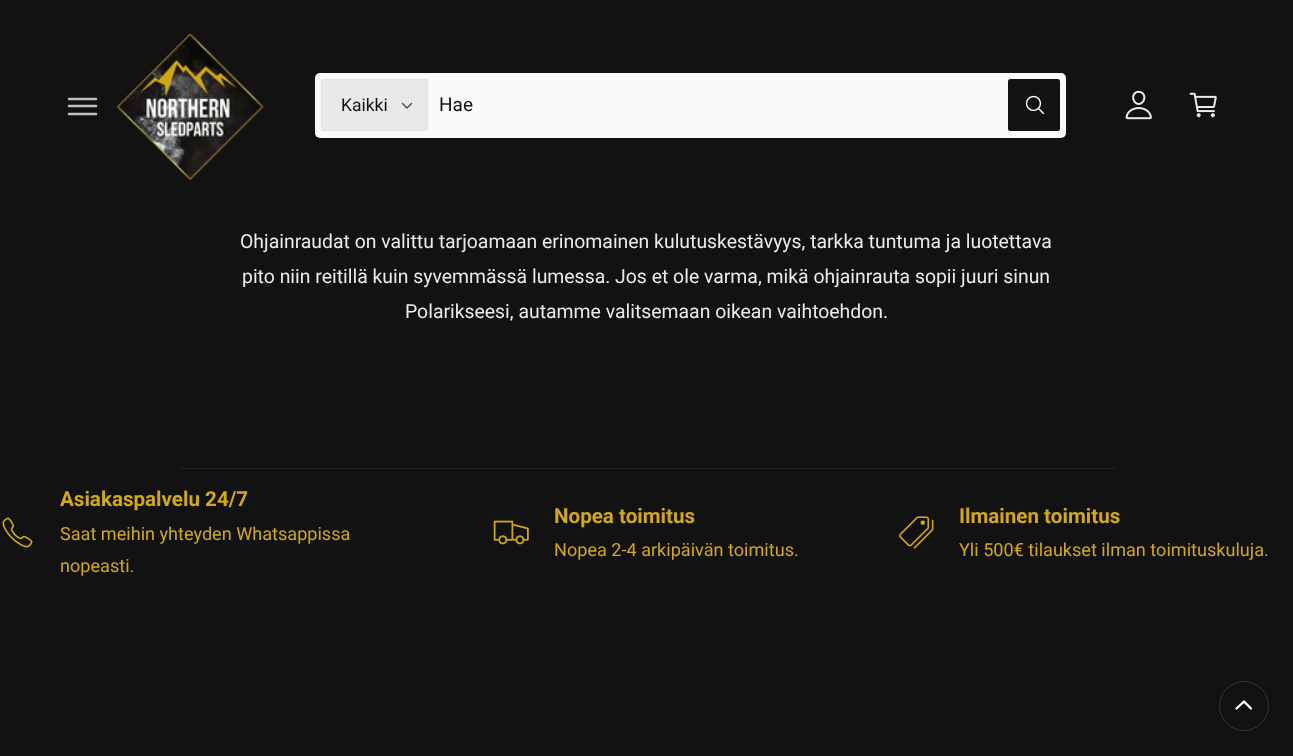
<svg xmlns="http://www.w3.org/2000/svg" width="1293" height="756">
<rect width="100%" height="100%" fill="#121212"/>
<path d="M69 99h27m-27 7h27m-27 8h27" fill="none" stroke="#c0c0c0" stroke-width="2.5" stroke-linecap="round"/>
<image x="116" y="33" width="148" height="148" href="media/1.png"/>
<rect x="315" y="73" width="751" height="65" rx="5" fill="#f8f9fa"/>
<rect x="321" y="79" width="107" height="52" rx="2.5" fill="#e8e9ea"/>
<rect x="321.5" y="79.5" width="106" height="51" fill="none" stroke="#12121208"/>
<text x="341" y="111" style="font-family:Roboto;font-size:17.5px;fill:#121212">Kaikki</text>
<path d="M402.5 103.5l4.5 4.5l4.5-4.5" fill="none" stroke="#525353" stroke-width="1.5" stroke-linecap="round" stroke-linejoin="round"/>
<text x="439" y="111" style="font-family:Roboto;font-size:19px;fill:#121212">Hae</text>
<rect x="1008" y="79" width="52" height="52" rx="2.5" fill="#121212"/>
<image x="1025" y="95" width="20" height="20" href="media/2.png"/>
<image x="1125" y="90" width="27" height="30" href="media/3.png"/>
<image x="1189" y="92" width="28" height="26" href="media/4.png"/>
<text x="240" y="248" style="font-family:Roboto;font-size:19.4px;fill:#ebebeb">Ohjainraudat on valittu tarjoamaan erinomainen kulutuskestävyys, tarkka tuntuma ja luotettava</text>
<text x="242" y="283" style="font-family:Roboto;font-size:19.4px;fill:#ebebeb">pito niin reitillä kuin syvemmässä lumessa. Jos et ole varma, mikä ohjainrauta sopii juuri sinun</text>
<text x="405" y="318" style="font-family:Roboto;font-size:19.4px;fill:#ebebeb">Polarikseesi, autamme valitsemaan oikean vaihtoehdon.</text>
<rect x="180" y="468" width="935" height="1" fill="#232323"/>
<image x="2" y="517" width="31" height="31" href="media/5.png"/>
<text x="60" y="506" style="font-family:Roboto;font-size:20.6px;font-weight:bold;fill:#d3a911">Asiakaspalvelu 24/7</text>
<text x="60" y="540" style="font-family:Roboto;font-size:18.1px;fill:#d3a911">Saat meihin yhteyden Whatsappissa</text>
<text x="60" y="572" style="font-family:Roboto;font-size:18.1px;fill:#d3a911">nopeasti.</text>
<image x="493" y="520" width="36" height="25" href="media/6.png"/>
<text x="554" y="523" style="font-family:Roboto;font-size:20.6px;font-weight:bold;fill:#d3a911">Nopea toimitus</text>
<text x="554" y="556" style="font-family:Roboto;font-size:18.1px;fill:#d3a911">Nopea 2-4 arkipäivän toimitus.</text>
<image x="899" y="516" width="35" height="33" href="media/7.png"/>
<text x="959" y="523" style="font-family:Roboto;font-size:20.6px;font-weight:bold;fill:#d3a911">Ilmainen toimitus</text>
<text x="959" y="556" style="font-family:Roboto;font-size:18.1px;fill:#d3a911">Yli 500€ tilaukset ilman toimituskuluja.</text>
<circle cx="1244" cy="706" r="24.5" fill="none" stroke="#363636"/>
<path d="M1251 708.5l-7-7l-7.5 7" fill="none" stroke="#fff" stroke-width="2.3" stroke-linecap="round" stroke-linejoin="round"/>
</svg>
